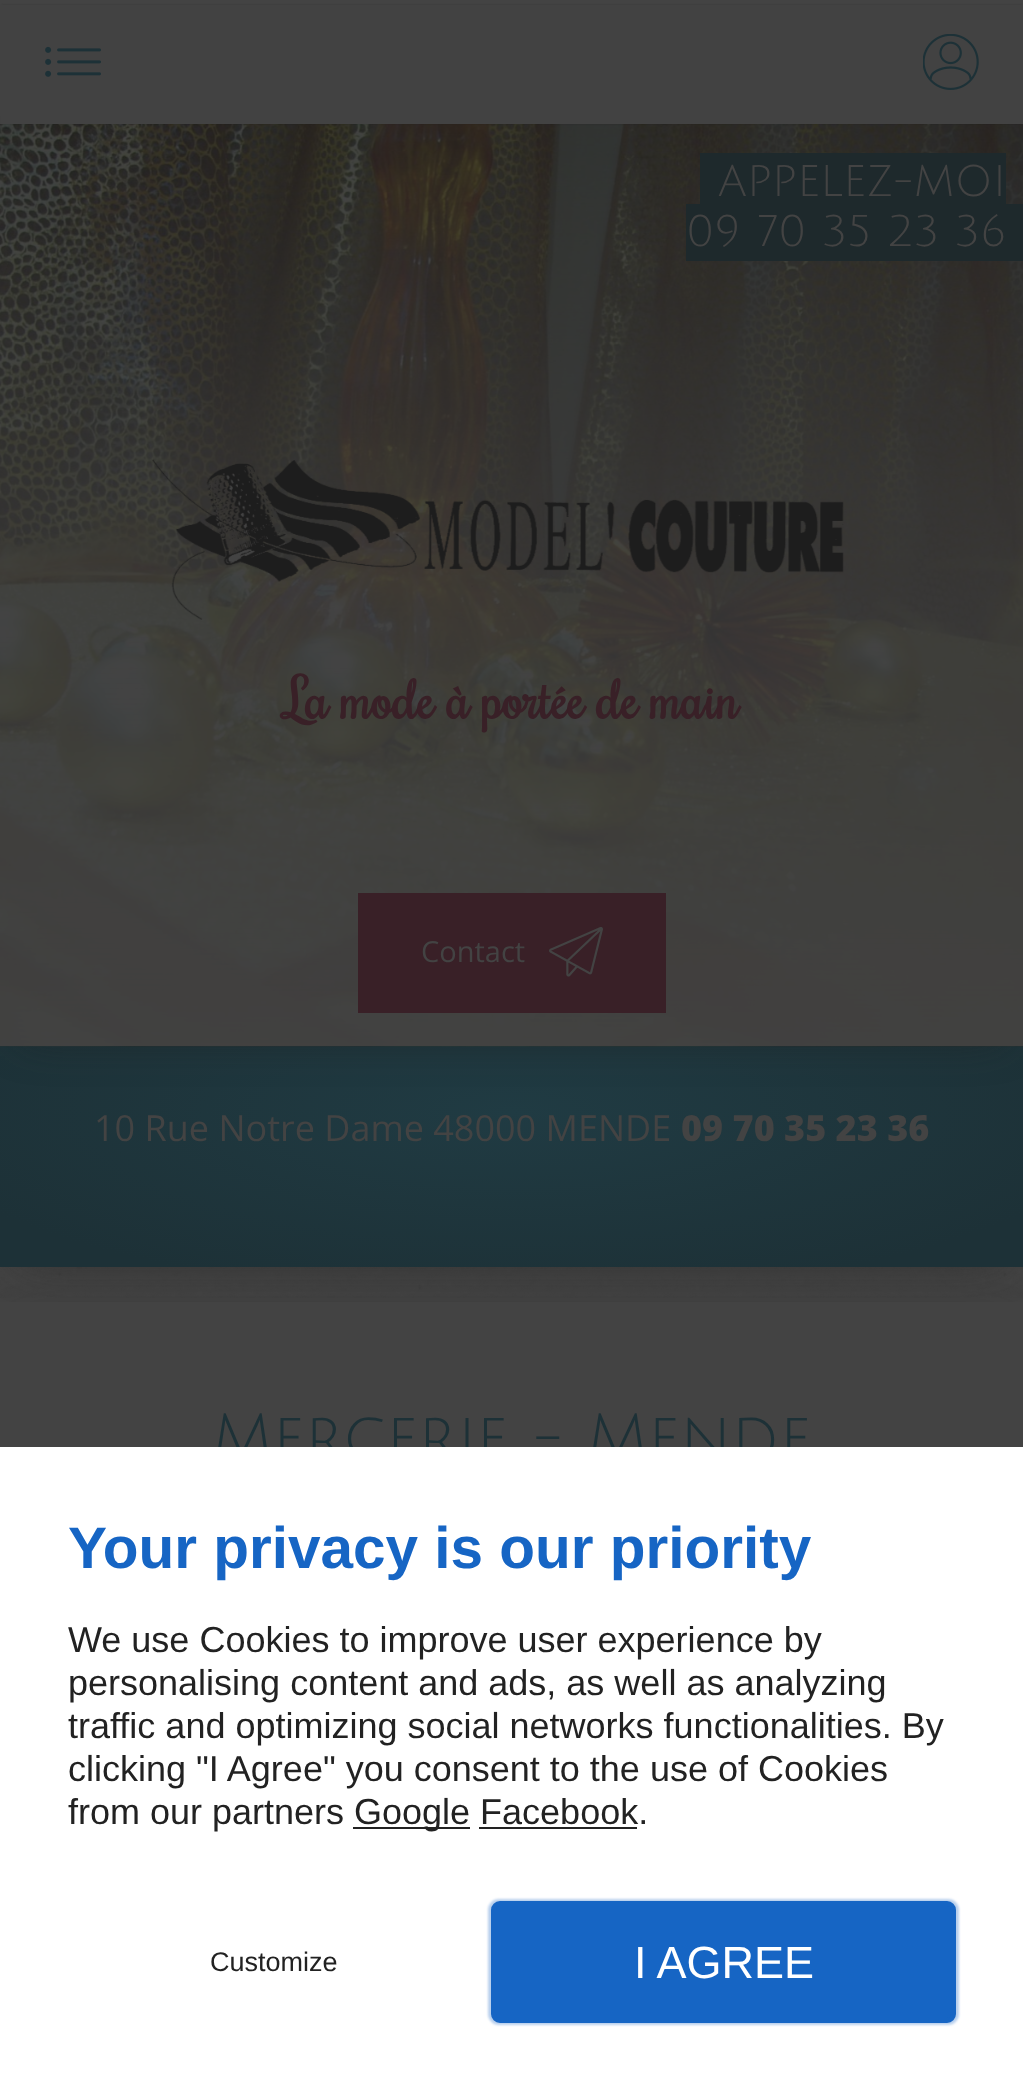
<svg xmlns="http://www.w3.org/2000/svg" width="1023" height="2089">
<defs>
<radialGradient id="g1" gradientUnits="userSpaceOnUse" cx="0" cy="0" r="1" gradientTransform="matrix(614 0 0 185 512 1112)"><stop offset="0" stop-color="#203b43"/><stop offset="1" stop-color="#1d3137"/></radialGradient>
</defs>
<rect width="100%" height="100%" fill="#434343"/>
<image x="0" y="1267" width="1023" height="31" href="media/1.png"/>
<rect x="23" y="1080" width="978" height="176" fill="#1d1d1d99" filter="blur(22.5px)"/>
<rect y="1046" width="1023" height="221" fill="url(#g1)"/>
<rect x="23" y="158" width="978" height="877" fill="#1d1d1d99" filter="blur(22.5px)"/>
<image x="0" y="124" width="1023" height="923" href="media/4.png"/>
<rect x="2" y="5" width="1020" height="119" fill="#1d1d1d4d" filter="blur(1px)"/>
<rect x="1" y="5" width="1022" height="119" fill="#424242"/>
<image x="45" y="46" width="56" height="31" href="media/2.png"/>
<image x="923" y="34" width="56" height="56" href="media/3.png"/>
<text x="718" y="196" style="font-family:Julius Sans One;font-size:43.25px;fill:#434343">APPELEZ-MOI</text>
<text x="686" y="246" style="font-family:Julius Sans One;font-size:43.25px;fill:#434343">09 70 35 23 36</text>
<image x="151" y="459" width="693" height="161" href="media/5.png"/>
<text x="284" y="719" style="font-family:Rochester;font-size:54px;font-weight:bold;fill:#392027">La mode à portée de main</text>
<rect x="358" y="893" width="308" height="120" fill="#392027"/>
<text x="421" y="962" style="font-family:Open Sans;font-size:29px;fill:#434343">Contact</text>
<image x="549" y="926" width="54" height="51" href="media/6.png"/>
<text x="94" y="1141" style="font-family:Open Sans;font-size:36px;fill:#434343">10 Rue Notre Dame 48000 MENDE</text>
<text x="681" y="1141" style="font-family:Open Sans;font-size:36px;font-weight:800;fill:#434343">09 70 35 23 36</text>
<rect x="23" y="1332" width="978" height="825" fill="#1d1d1d99" filter="blur(22.5px)"/>
<rect y="1302" width="1023" height="145" fill="#434343"/>
<text x="212" y="1460" style="font-family:Julius Sans One;font-size:64.75px;fill:#1d3137">Mercerie - Mende</text>
<rect y="1447" width="1023" height="642" fill="#fff"/>
<text x="68" y="1568" style="font-family:Liberation Sans;font-size:58.5px;font-weight:bold;fill:#1665c4">Your privacy is our priority</text>
<text x="68" y="1652" style="font-family:Liberation Sans;font-size:36px;fill:#222">We use Cookies to improve user experience by</text>
<text x="68" y="1695" style="font-family:Liberation Sans;font-size:36px;fill:#222">personalising content and ads, as well as analyzing</text>
<text x="68" y="1738" style="font-family:Liberation Sans;font-size:36px;fill:#222">traffic and optimizing social networks functionalities. By</text>
<text x="68" y="1781" style="font-family:Liberation Sans;font-size:36px;fill:#222">clicking "I Agree" you consent to the use of Cookies</text>
<text x="68" y="1824" style="font-family:Liberation Sans;font-size:36px;fill:#222">from our partners</text>
<rect x="353" y="1827" width="117" height="2" fill="#222"/>
<text x="354" y="1824" style="font-family:Liberation Sans;font-size:36px;fill:#222">Google Facebook.</text>
<rect x="479" y="1827" width="158" height="2" fill="#222"/>
<text x="210" y="1971" style="font-family:Liberation Sans;font-size:27px;fill:#222">Customize</text>
<rect x="488" y="1899" width="471" height="126" rx="11" fill="#1665c44d" filter="blur(1px)"/>
<rect x="493.5" y="1903.5" width="460" height="117" rx="6.5" fill="#1665c4" stroke="#1665c4" stroke-width="5"/>
<text x="634" y="1978" style="font-family:Liberation Sans;font-size:45px;fill:#fff">I AGREE</text>
</svg>
